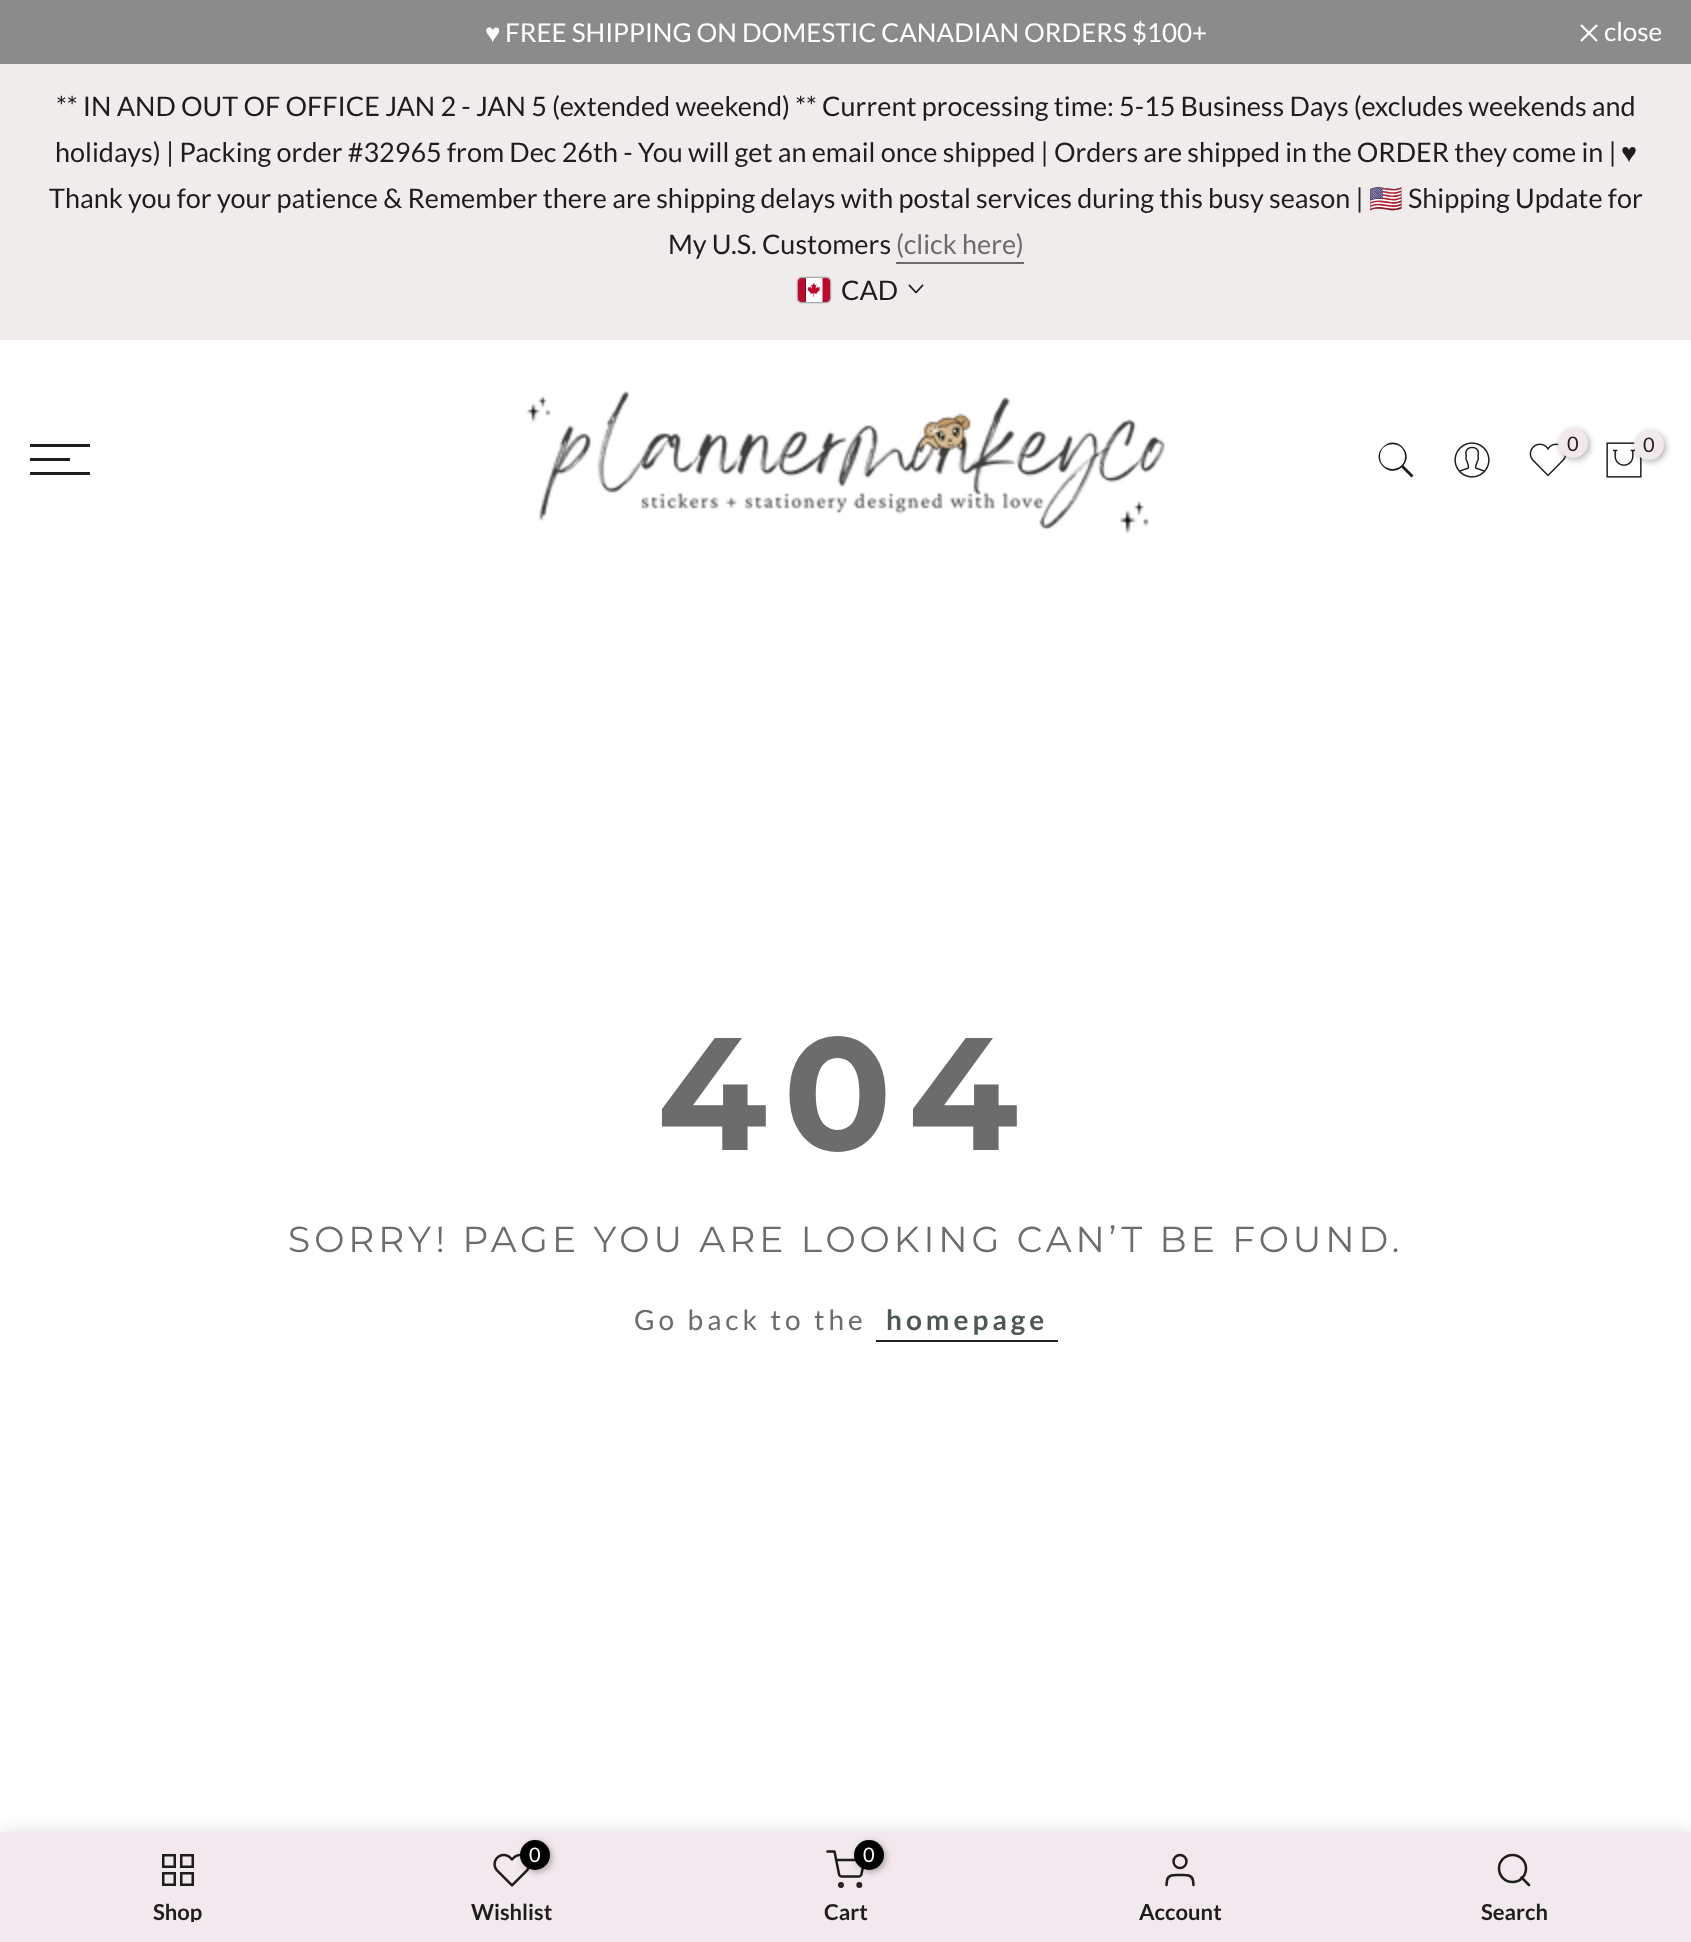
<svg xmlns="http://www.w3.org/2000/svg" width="1691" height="1942">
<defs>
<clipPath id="clip1"><rect x="30" y="1900" width="294" height="22"/></clipPath>
</defs>
<rect width="100%" height="100%" fill="#fff"/>
<rect width="1691" height="64" fill="#8b8b8c"/>
<text x="485" y="42" style="font-family:Liberation Serif;font-size:26px;fill:#fff">♥</text>
<text x="505" y="42" style="font-family:Lato;font-size:26px;fill:#fff">FREE SHIPPING ON DOMESTIC CANADIAN ORDERS $100+</text>
<path d="M1597 25l-16 16m16 0l-16-16" fill="none" stroke="#fff" stroke-width="2.2"/>
<text x="1604" y="41" style="font-family:Lato;font-size:26px;fill:#fff">close</text>
<rect y="64" width="1691" height="276" fill="#f1ecec"/>
<text x="56" y="116" style="font-family:Lato;font-size:27px;fill:#1d1d1d">** IN AND OUT OF OFFICE JAN 2 - JAN 5 (extended weekend) ** Current processing time: 5-15 Business Days (excludes weekends and</text>
<text x="55" y="162" style="font-family:Lato;font-size:27px;fill:#1d1d1d">holidays) | Packing order #32965 from Dec 26th - You will get an email once shipped | Orders are shipped in the ORDER they come in |</text>
<text x="1621" y="162" style="font-family:Liberation Serif;font-size:27px;fill:#1d1d1d">♥</text>
<text x="49" y="208" style="font-family:Lato;font-size:27px;fill:#1d1d1d">Thank you for your patience &amp; Remember there are shipping delays with postal services during this busy season |</text>
<text x="1369" y="208" style="font-family:Noto Color Emoji;font-size:27px;fill:#1d1d1d">🇺🇸</text>
<text x="1408" y="208" style="font-family:Lato;font-size:27px;fill:#1d1d1d">Shipping Update for</text>
<text x="668" y="254" style="font-family:Lato;font-size:27px;fill:#1d1d1d">My U.S. Customers</text>
<text x="896" y="254" style="font-family:Lato;font-size:27px;fill:#6c6c6c">(click here)</text>
<rect x="896" y="262" width="128" height="2" fill="#6c6c6c"/>
<rect x="798" y="278" width="32" height="24" rx="4" fill="#1d1d1d" filter="blur(1px)"/>
<image x="798" y="278" width="32" height="24" href="media/1.png"/>
<text x="841" y="300" style="font-family:Lato;font-size:27px;fill:#1d1d1d">CAD</text>
<path d="M922.5 285.5l-6.5 7l-6.5-7" fill="none" stroke="#1d1d1d" stroke-width="1.7" stroke-linecap="square"/>
<rect x="30" y="444" width="60" height="3" fill="#1d1d1d"/>
<rect x="30" y="458" width="40" height="3" fill="#1d1d1d"/>
<rect x="30" y="472" width="60" height="3" fill="#1d1d1d"/>
<image x="526" y="391" width="639" height="143" href="media/2.png"/>
<path d="M1413.5 475.5l-10-10c11-13-8-31.5-20.5-18.5c-13 12.5 5.5 31.5 18.5 20.5l10 10zm-33.5-19c0-16.5 25-16.5 25 0c0 16.5-25 16.5-25 0z" fill="#1d1d1d"/>
<image x="1454" y="442" width="36" height="36" href="media/3.png"/>
<image x="1529" y="443" width="37" height="34" href="media/4.png"/>
<rect x="1560" y="430" width="30" height="30" rx="15" fill="#0000004d" filter="blur(3px)"/>
<circle cx="1573" cy="443" r="15" fill="#f1e9ee"/>
<text x="1567" y="451" style="font-family:Lato;font-size:20px;fill:#1d1d1d">0</text>
<image x="1606" y="442" width="36" height="36" href="media/5.png"/>
<rect x="1636" y="432" width="30" height="30" rx="15" fill="#0000004d" filter="blur(3px)"/>
<circle cx="1649" cy="445" r="15" fill="#f1e9ee"/>
<text x="1643" y="452" style="font-family:Lato;font-size:20px;fill:#1d1d1d">0</text>
<text x="657" y="1150" style="font-family:Montserrat;font-size:160px;font-weight:bold;letter-spacing:16px;fill:#6c6c6c">404</text>
<text x="288" y="1252" style="font-family:Montserrat;font-size:36px;letter-spacing:4px;fill:#6c6c6c">SORRY! PAGE YOU ARE LOOKING CAN’T BE FOUND.</text>
<text x="634" y="1330" style="font-family:Lato;font-size:28px;letter-spacing:4px;fill:#6c6c6c">Go back to the</text>
<text x="886" y="1330" style="font-family:Lato;font-size:28px;font-weight:bold;letter-spacing:4px;fill:#4d5959">homepage</text>
<rect x="876" y="1340" width="182" height="2" fill="#222"/>
<rect y="1832" width="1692" height="110" fill="#0000001f" filter="blur(9px)"/>
<rect y="1832" width="1691" height="110" fill="#f1e9ee"/>
<rect x="163.25" y="1855.25" width="11.5" height="11.5" fill="none" stroke="#1d1d1d" stroke-width="2.5"/>
<rect x="181.25" y="1855.25" width="11.5" height="11.5" fill="none" stroke="#1d1d1d" stroke-width="2.5"/>
<rect x="163.25" y="1873.25" width="11.5" height="11.5" fill="none" stroke="#1d1d1d" stroke-width="2.5"/>
<rect x="181.25" y="1873.25" width="11.5" height="11.5" fill="none" stroke="#1d1d1d" stroke-width="2.5"/>
<g clip-path="url(#clip1)">
<text x="153" y="1920" style="font-family:Lato;font-size:22px;font-weight:bold;fill:#1d1d1d">Shop</text>
</g>
<image x="493" y="1853" width="37" height="34" href="media/6.png"/>
<rect x="522" y="1842" width="30" height="30" rx="15" fill="#0000004d" filter="blur(3px)"/>
<circle cx="535" cy="1855" r="15" fill="#000"/>
<text x="529" y="1862" style="font-family:Lato;font-size:20px;fill:#fff">0</text>
<text x="471" y="1920" style="font-family:Lato;font-size:22px;font-weight:bold;fill:#1d1d1d">Wishlist</text>
<path d="M827.5 1851.5h7l4.5 22.5c0 1.5 1.5 2.5 3 2.5h16.5c1.5 0 3-1 3-2.5l3-14h-28.5" fill="none" stroke="#1d1d1d" stroke-width="2.5" stroke-linecap="round" stroke-linejoin="round"/>
<rect x="856" y="1842" width="30" height="30" rx="15" fill="#0000004d" filter="blur(3px)"/>
<circle cx="869" cy="1855" r="15" fill="#000"/>
<text x="863" y="1862" style="font-family:Lato;font-size:20px;fill:#fff">0</text>
<circle cx="841" cy="1885" r="1.7" fill="none" stroke="#1d1d1d" stroke-width="2.5"/>
<circle cx="859.3" cy="1885" r="1.7" fill="none" stroke="#1d1d1d" stroke-width="2.5"/>
<text x="824" y="1920" style="font-family:Lato;font-size:22px;font-weight:bold;fill:#1d1d1d">Cart</text>
<circle cx="1180" cy="1861.5" r="6.5" fill="none" stroke="#1d1d1d" stroke-width="2.5"/>
<path d="M1193.5 1885l-.5-4.5c-1-6.5-8-5.5-13-5.5c-5 0-12-1-13 5.5l-.5 4.5" fill="none" stroke="#1d1d1d" stroke-width="2.5" stroke-linecap="round" stroke-linejoin="round"/>
<text x="1139" y="1920" style="font-family:Lato;font-size:22px;font-weight:bold;fill:#1d1d1d">Account</text>
<circle cx="1512.5" cy="1868.5" r="13.5" fill="none" stroke="#1d1d1d" stroke-width="2.5"/>
<path d="M1529 1885l-7.5-7.5" fill="none" stroke="#1d1d1d" stroke-width="2.5" stroke-linecap="round" stroke-linejoin="round"/>
<text x="1481" y="1920" style="font-family:Lato;font-size:22px;font-weight:bold;fill:#1d1d1d">Search</text>
</svg>
